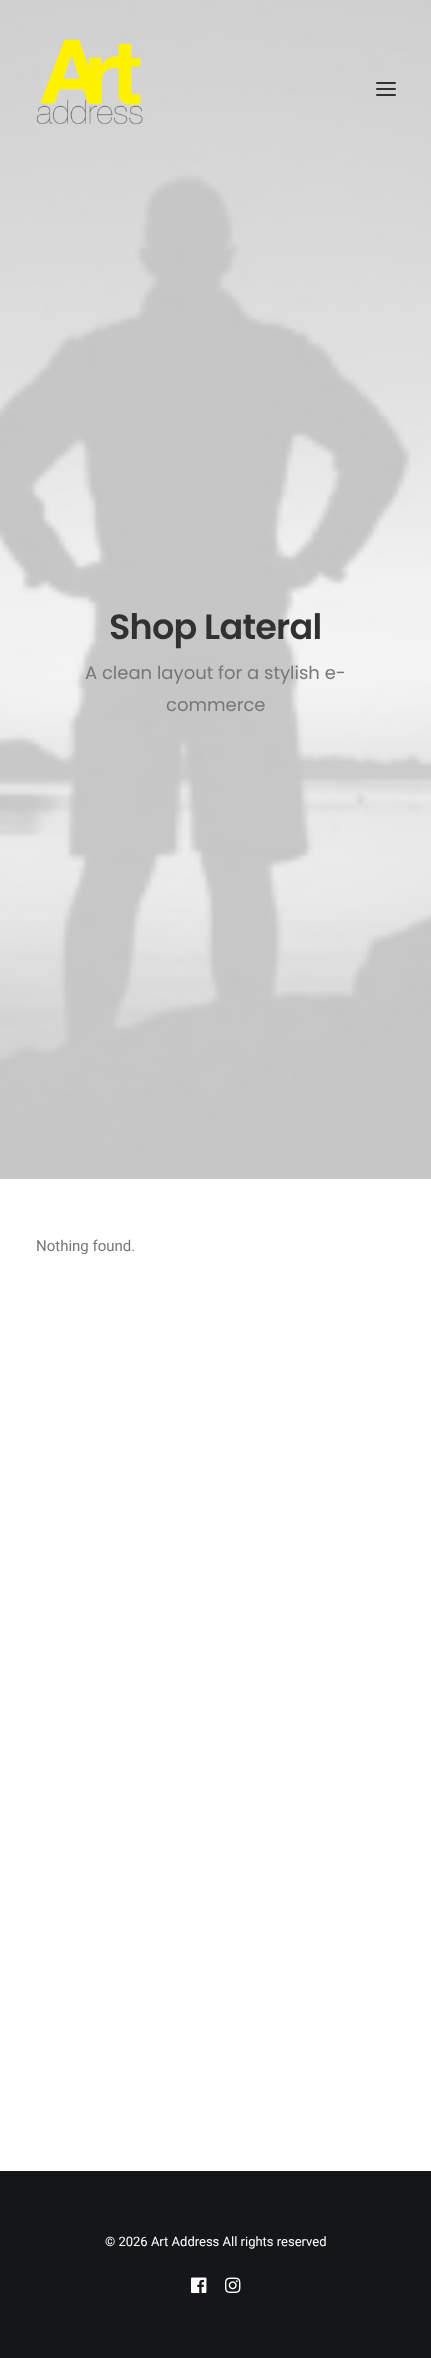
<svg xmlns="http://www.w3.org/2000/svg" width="431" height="2358">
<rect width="100%" height="100%" fill="#141618"/>
<image x="0" y="0" width="431" height="1179" href="media/2.png"/>
<image x="36" y="39" width="107" height="85" href="media/1.png"/>
<rect x="376" y="88" width="20" height="2" rx="1" fill="#303133"/>
<rect x="376" y="82" width="20" height="2" rx="1" fill="#303133"/>
<rect x="376" y="94" width="20" height="2" rx="1" fill="#303133"/>
<text x="109" y="639" style="font-family:Poppins;font-size:35px;font-weight:600;letter-spacing:-0.75px;fill:#303133">Shop Lateral</text>
<text x="85" y="679" style="font-family:Poppins;font-size:18px;fill:#777">A clean layout for a stylish e-</text>
<text x="166" y="711" style="font-family:Poppins;font-size:18px;fill:#777">commerce</text>
<rect y="1179" width="431" height="992" fill="#fff"/>
<text x="36" y="1251" style="font-family:Roboto;font-size:15px;fill:#777">Nothing found.</text>
<text x="105" y="2246" style="font-family:Roboto;font-size:13px;fill:#fff">© 2026 Art Address All rights reserved</text>
<image x="191" y="2277" width="16" height="16" href="media/3.png"/>
<image x="225" y="2277" width="16" height="16" href="media/4.png"/>
</svg>
